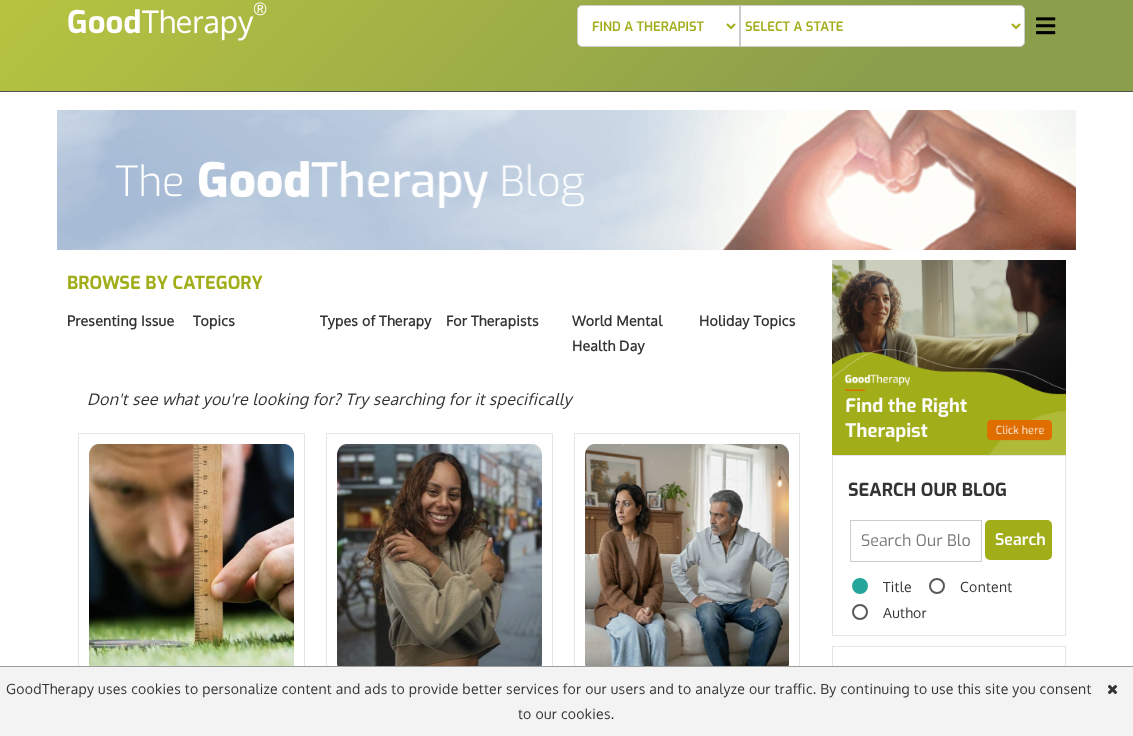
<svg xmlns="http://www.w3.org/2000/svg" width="1133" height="736">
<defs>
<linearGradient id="g1" gradientUnits="userSpaceOnUse" x1="260" y1="-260" x2="873" y2="352"><stop offset="0" stop-color="#b7c440"/><stop offset="0.78" stop-color="#8b9e4c"/></linearGradient>
</defs>
<rect width="100%" height="100%" fill="#fff"/>
<rect width="1133" height="91" fill="url(#g1)"/>
<rect y="91" width="1133" height="1" fill="#515151"/>
<text x="67" y="33" style="font-family:Exo;font-size:31px;font-weight:bold;fill:#fff">Good</text>
<text x="142" y="33" style="font-family:Oxygen;font-size:31px;fill:#fff">Therapy</text>
<text x="253" y="15" style="font-family:Oxygen;font-size:16px;fill:#fff">®</text>
<path d="M582 5.5h157.5v41h-157.5c-2.5 0-4.5-2-4.5-4.5v-32c0-2.5 2-4.5 4.5-4.5z" fill="#fff" stroke="#ccc"/>
<path d="M727 24l4 4l4-4" fill="none" stroke="#a2ad1a" stroke-width="2"/>
<text x="592" y="31" style="font-family:Exo;font-size:13px;font-weight:600;fill:#a2ad1a">FIND A THERAPIST</text>
<path d="M740.5 5.5h279.5c2.5 0 4.5 2 4.5 4.5v32c0 2.5-2 4.5-4.5 4.5h-279.5z" fill="#fff" stroke="#ccc"/>
<path d="M1012 24l4 4l4-4" fill="none" stroke="#a2ad1a" stroke-width="2"/>
<text x="745" y="31" style="font-family:Exo;font-size:13px;font-weight:600;fill:#a2ad1a">SELECT A STATE</text>
<image x="1036" y="17" width="20" height="18" href="media/1.png"/>
<image x="57" y="110" width="1019" height="140" href="media/2.png"/>
<text x="67" y="289" style="font-family:Exo;font-size:18px;font-weight:bold;fill:#a2ad1a">BROWSE BY CATEGORY</text>
<text x="67" y="326" style="font-family:Oxygen;font-size:14px;font-weight:bold;letter-spacing:0.3px;fill:#333">Presenting Issue</text>
<text x="193" y="326" style="font-family:Oxygen;font-size:14px;font-weight:bold;letter-spacing:0.3px;fill:#333">Topics</text>
<text x="320" y="326" style="font-family:Oxygen;font-size:14px;font-weight:bold;letter-spacing:0.3px;fill:#333">Types of Therapy</text>
<text x="446" y="326" style="font-family:Oxygen;font-size:14px;font-weight:bold;letter-spacing:0.3px;fill:#333">For Therapists</text>
<text x="572" y="326" style="font-family:Oxygen;font-size:14px;font-weight:bold;letter-spacing:0.3px;fill:#333">World Mental</text>
<text x="572" y="351" style="font-family:Oxygen;font-size:14px;font-weight:bold;letter-spacing:0.3px;fill:#333">Health Day</text>
<text x="699" y="326" style="font-family:Oxygen;font-size:14px;font-weight:bold;letter-spacing:0.3px;fill:#333">Holiday Topics</text>
<text x="87" y="405" style="font-family:Oxygen;font-size:16px;font-style:italic;letter-spacing:0.3px;fill:#333">Don't see what you're looking for? Try searching for it specifically</text>
<rect x="78.5" y="433.5" width="226" height="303" fill="none" stroke="#e5e5e5"/>
<image x="89" y="444" width="205" height="222" href="media/3.png"/>
<rect x="326.5" y="433.5" width="226" height="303" fill="none" stroke="#e5e5e5"/>
<image x="337" y="444" width="205" height="222" href="media/4.png"/>
<rect x="574.5" y="433.5" width="225" height="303" fill="none" stroke="#e5e5e5"/>
<image x="585" y="444" width="204" height="222" href="media/5.png"/>
<image x="832" y="260" width="234" height="195" href="media/6.png"/>
<rect x="832.5" y="455.5" width="233" height="180" fill="none" stroke="#e5e5e5"/>
<text x="848" y="496" style="font-family:Exo;font-size:18px;font-weight:bold;fill:#333">SEARCH OUR BLOG</text>
<rect x="850.5" y="520.5" width="131" height="41" fill="none" stroke="#ccc"/>
<text x="861" y="546" style="font-family:Exo;font-size:16px;fill:#777">Search Our Blo</text>
<rect x="985" y="520" width="67" height="40" rx="5" fill="#a2ad1a"/>
<text x="995" y="545" style="font-family:Exo;font-size:16px;font-weight:600;fill:#fff">Search</text>
<circle cx="860" cy="586" r="7" fill="#26a69a" stroke="#26a69a" stroke-width="2"/>
<text x="883" y="592" style="font-family:Oxygen;font-size:14px;letter-spacing:0.3px;fill:#333">Title</text>
<circle cx="937" cy="586" r="7" fill="none" stroke="#5a5a5a" stroke-width="2"/>
<text x="960" y="592" style="font-family:Oxygen;font-size:14px;letter-spacing:0.3px;fill:#333">Content</text>
<circle cx="860" cy="612" r="7" fill="none" stroke="#5a5a5a" stroke-width="2"/>
<text x="883" y="618" style="font-family:Oxygen;font-size:14px;letter-spacing:0.3px;fill:#333">Author</text>
<rect x="832.5" y="646.5" width="233" height="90" fill="none" stroke="#e5e5e5"/>
<rect y="667" width="1133" height="69" fill="#f3f3f3"/>
<rect y="666" width="1133" height="1" fill="#9d9d9d"/>
<text x="6" y="694" style="font-family:Oxygen;font-size:14px;letter-spacing:0.3px;fill:#333">GoodTherapy uses cookies to personalize content and ads to provide better services for our users and to analyze our traffic. By continuing to use this site you consent</text>
<image x="1107" y="684" width="11" height="11" href="media/7.png"/>
<text x="518" y="719" style="font-family:Oxygen;font-size:14px;letter-spacing:0.3px;fill:#333">to our cookies.</text>
</svg>
